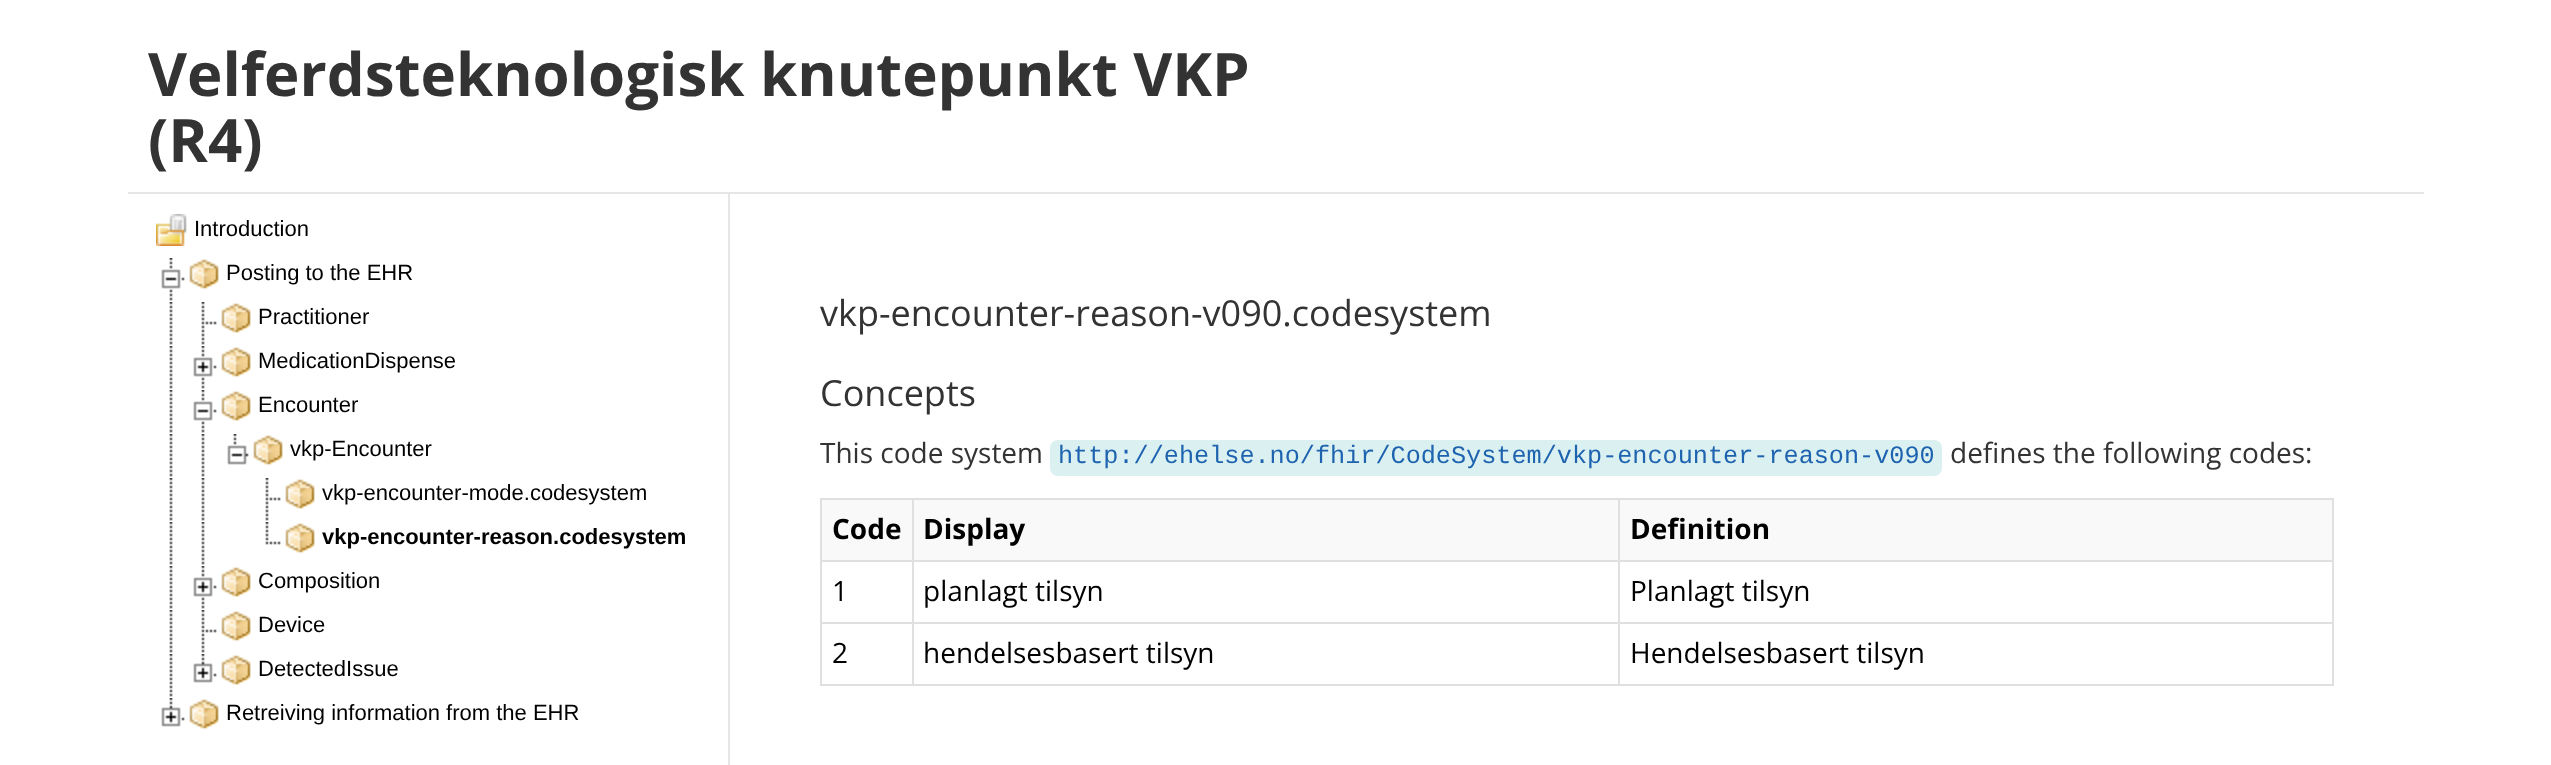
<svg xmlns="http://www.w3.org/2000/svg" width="2551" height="765">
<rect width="100%" height="100%" fill="#fff"/>
<text x="148" y="96" style="font-family:Open Sans;font-size:60px;font-weight:bold;fill:#333">Velferdsteknologisk knutepunkt VKP</text>
<text x="148" y="162" style="font-family:Open Sans;font-size:60px;font-weight:bold;fill:#333">(R4)</text>
<rect x="128" y="192" width="2296" height="2" fill="#e6e6e6"/>
<image x="156" y="214" width="31" height="32" href="media/1.png"/>
<text x="194" y="236" style="font-family:Liberation Sans;font-size:22px;fill:#000">Introduction</text>
<image x="161" y="258" width="24" height="43" href="media/2.png"/>
<image x="189" y="259" width="30" height="30" href="media/3.png"/>
<text x="226" y="280" style="font-family:Liberation Sans;font-size:22px;fill:#000">Posting to the EHR</text>
<image x="169" y="302" width="4" height="43" href="media/4.png"/>
<image x="201" y="302" width="16" height="43" href="media/5.png"/>
<image x="221" y="303" width="30" height="30" href="media/3.png"/>
<text x="258" y="324" style="font-family:Liberation Sans;font-size:22px;fill:#000">Practitioner</text>
<image x="169" y="346" width="4" height="43" href="media/4.png"/>
<image x="193" y="346" width="24" height="43" href="media/6.png"/>
<image x="221" y="347" width="30" height="30" href="media/3.png"/>
<text x="258" y="368" style="font-family:Liberation Sans;font-size:22px;fill:#000">MedicationDispense</text>
<image x="169" y="390" width="4" height="43" href="media/4.png"/>
<image x="193" y="390" width="24" height="43" href="media/2.png"/>
<image x="221" y="391" width="30" height="30" href="media/3.png"/>
<text x="258" y="412" style="font-family:Liberation Sans;font-size:22px;fill:#000">Encounter</text>
<image x="169" y="434" width="4" height="43" href="media/4.png"/>
<image x="201" y="434" width="4" height="43" href="media/4.png"/>
<image x="227" y="434" width="22" height="31" href="media/7.png"/>
<image x="253" y="435" width="30" height="30" href="media/3.png"/>
<text x="290" y="456" style="font-family:Liberation Sans;font-size:22px;fill:#000">vkp-Encounter</text>
<image x="169" y="478" width="4" height="43" href="media/4.png"/>
<image x="201" y="478" width="4" height="43" href="media/4.png"/>
<image x="265" y="478" width="16" height="43" href="media/5.png"/>
<image x="285" y="479" width="30" height="30" href="media/3.png"/>
<text x="322" y="500" style="font-family:Liberation Sans;font-size:22px;fill:#000">vkp-encounter-mode.codesystem</text>
<image x="169" y="522" width="4" height="43" href="media/4.png"/>
<image x="201" y="522" width="4" height="43" href="media/4.png"/>
<image x="265" y="522" width="16" height="23" href="media/8.png"/>
<image x="285" y="523" width="30" height="30" href="media/3.png"/>
<text x="322" y="544" style="font-family:Liberation Sans;font-size:22px;font-weight:bold;fill:#000">vkp-encounter-reason.codesystem</text>
<image x="169" y="566" width="4" height="43" href="media/4.png"/>
<image x="193" y="566" width="24" height="43" href="media/6.png"/>
<image x="221" y="567" width="30" height="30" href="media/3.png"/>
<text x="258" y="588" style="font-family:Liberation Sans;font-size:22px;fill:#000">Composition</text>
<image x="169" y="610" width="4" height="43" href="media/4.png"/>
<image x="201" y="610" width="16" height="43" href="media/5.png"/>
<image x="221" y="611" width="30" height="30" href="media/3.png"/>
<text x="258" y="632" style="font-family:Liberation Sans;font-size:22px;fill:#000">Device</text>
<image x="169" y="654" width="4" height="43" href="media/4.png"/>
<image x="193" y="654" width="24" height="29" href="media/9.png"/>
<image x="221" y="655" width="30" height="30" href="media/3.png"/>
<text x="258" y="676" style="font-family:Liberation Sans;font-size:22px;fill:#000">DetectedIssue</text>
<image x="161" y="698" width="24" height="29" href="media/9.png"/>
<image x="189" y="699" width="30" height="30" href="media/3.png"/>
<text x="226" y="720" style="font-family:Liberation Sans;font-size:22px;fill:#000">Retreiving information from the EHR</text>
<rect x="728" y="194" width="2" height="571" fill="#e6e6e6"/>
<text x="820" y="326" style="font-family:Open Sans;font-size:36px;fill:#333">vkp-encounter-reason-v090.codesystem</text>
<text x="820" y="406" style="font-family:Open Sans;font-size:36px;fill:#333">Concepts</text>
<text x="820" y="463" style="font-family:Open Sans;font-size:28px;fill:#333">This code system</text>
<rect x="1050" y="440" width="892" height="36" rx="8" fill="#dbf0f0"/>
<text x="1058" y="463" style="font-family:Liberation Mono;font-size:25.2px;fill:#1d63af">http://ehelse.no/fhir/CodeSystem/vkp-encounter-reason-v090</text>
<text x="1950" y="463" style="font-family:Open Sans;font-size:28px;fill:#333">defines the following codes:</text>
<rect x="820" y="560" width="1514" height="2" fill="#e0e0e0"/>
<rect x="822" y="500" width="90" height="60" fill="#f9f9f9"/>
<rect x="1618" y="498" width="716" height="2" fill="#e0e0e0"/>
<rect x="820" y="622" width="1514" height="2" fill="#e0e0e0"/>
<rect x="2332" y="560" width="2" height="126" fill="#e0e0e0"/>
<rect x="1618" y="684" width="716" height="2" fill="#e0e0e0"/>
<rect x="1618" y="560" width="2" height="126" fill="#e0e0e0"/>
<rect x="1618" y="498" width="2" height="64" fill="#e0e0e0"/>
<rect x="912" y="498" width="708" height="2" fill="#e0e0e0"/>
<rect x="912" y="684" width="708" height="2" fill="#e0e0e0"/>
<rect x="912" y="560" width="2" height="126" fill="#e0e0e0"/>
<rect x="912" y="498" width="2" height="64" fill="#e0e0e0"/>
<rect x="820" y="498" width="94" height="2" fill="#e0e0e0"/>
<rect x="820" y="684" width="94" height="2" fill="#e0e0e0"/>
<rect x="820" y="560" width="2" height="126" fill="#e0e0e0"/>
<rect x="820" y="498" width="2" height="64" fill="#e0e0e0"/>
<text x="832" y="539" style="font-family:Open Sans;font-size:28px;font-weight:bold;fill:#000">Code</text>
<rect x="914" y="500" width="704" height="60" fill="#f9f9f9"/>
<text x="923" y="539" style="font-family:Open Sans;font-size:28px;font-weight:bold;fill:#000">Display</text>
<rect x="1620" y="500" width="712" height="60" fill="#f9f9f9"/>
<rect x="2332" y="498" width="2" height="64" fill="#e0e0e0"/>
<text x="1630" y="539" style="font-family:Open Sans;font-size:28px;font-weight:bold;fill:#000">Definition</text>
<text x="832" y="601" style="font-family:Open Sans;font-size:28px;fill:#000">1</text>
<text x="923" y="601" style="font-family:Open Sans;font-size:28px;fill:#000">planlagt tilsyn</text>
<text x="1630" y="601" style="font-family:Open Sans;font-size:28px;fill:#000">Planlagt tilsyn</text>
<text x="832" y="663" style="font-family:Open Sans;font-size:28px;fill:#000">2</text>
<text x="923" y="663" style="font-family:Open Sans;font-size:28px;fill:#000">hendelsesbasert tilsyn</text>
<text x="1630" y="663" style="font-family:Open Sans;font-size:28px;fill:#000">Hendelsesbasert tilsyn</text>
</svg>
